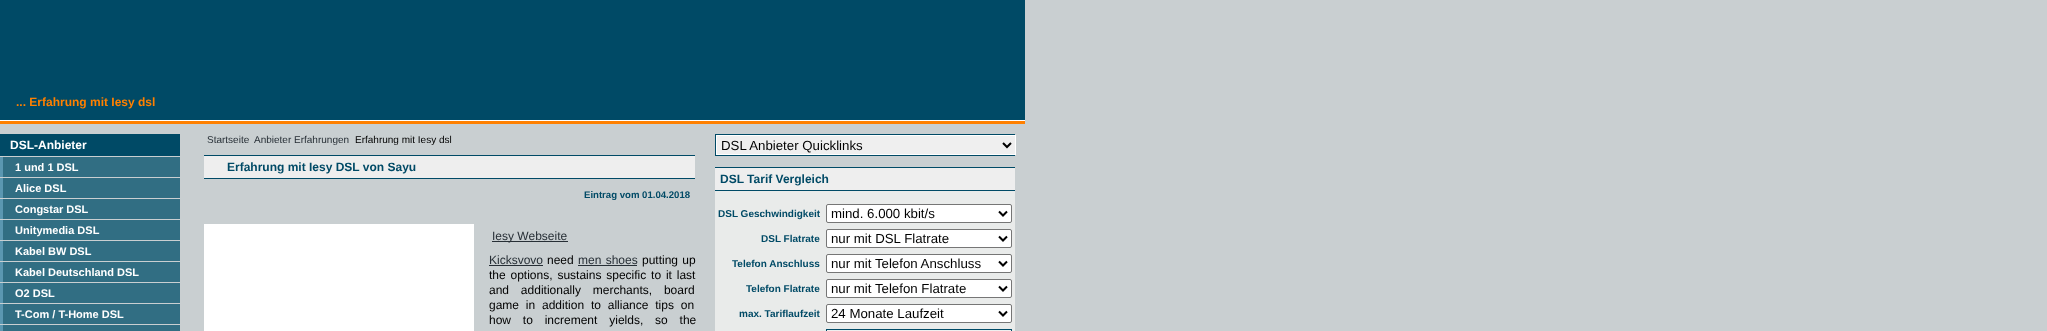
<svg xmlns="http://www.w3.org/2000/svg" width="2047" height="331">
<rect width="100%" height="100%" fill="#c9cfd1"/>
<rect width="1025" height="120" fill="#004a66"/>
<rect y="120" width="1025" height="1" fill="#fff"/>
<text x="16" y="106" style="font-family:Liberation Sans;font-size:12px;font-weight:bold;fill:#ff8000">... Erfahrung mit Iesy dsl</text>
<rect y="121" width="1025" height="3" fill="#ff8000"/>
<rect y="134" width="180" height="22" fill="#004a66"/>
<text x="10" y="149" style="font-family:Liberation Sans;font-size:12px;font-weight:bold;fill:#fff">DSL-Anbieter</text>
<rect x="3" y="157" width="177" height="20" fill="#316e83"/>
<rect y="157" width="3" height="20" fill="#5b97b1"/>
<text x="15" y="171" style="font-family:Liberation Sans;font-size:11px;font-weight:bold;fill:#fff">1 und 1 DSL</text>
<rect x="3" y="178" width="177" height="20" fill="#316e83"/>
<rect y="178" width="3" height="20" fill="#5b97b1"/>
<text x="15" y="192" style="font-family:Liberation Sans;font-size:11px;font-weight:bold;fill:#fff">Alice DSL</text>
<rect x="3" y="199" width="177" height="20" fill="#316e83"/>
<rect y="199" width="3" height="20" fill="#5b97b1"/>
<text x="15" y="213" style="font-family:Liberation Sans;font-size:11px;font-weight:bold;fill:#fff">Congstar DSL</text>
<rect x="3" y="220" width="177" height="20" fill="#316e83"/>
<rect y="220" width="3" height="20" fill="#5b97b1"/>
<text x="15" y="234" style="font-family:Liberation Sans;font-size:11px;font-weight:bold;fill:#fff">Unitymedia DSL</text>
<rect x="3" y="241" width="177" height="20" fill="#316e83"/>
<rect y="241" width="3" height="20" fill="#5b97b1"/>
<text x="15" y="255" style="font-family:Liberation Sans;font-size:11px;font-weight:bold;fill:#fff">Kabel BW DSL</text>
<rect x="3" y="262" width="177" height="20" fill="#316e83"/>
<rect y="262" width="3" height="20" fill="#5b97b1"/>
<text x="15" y="276" style="font-family:Liberation Sans;font-size:11px;font-weight:bold;fill:#fff">Kabel Deutschland DSL</text>
<rect x="3" y="283" width="177" height="20" fill="#316e83"/>
<rect y="283" width="3" height="20" fill="#5b97b1"/>
<text x="15" y="297" style="font-family:Liberation Sans;font-size:11px;font-weight:bold;fill:#fff">O2 DSL</text>
<rect x="3" y="304" width="177" height="20" fill="#316e83"/>
<rect y="304" width="3" height="20" fill="#5b97b1"/>
<text x="15" y="318" style="font-family:Liberation Sans;font-size:11px;font-weight:bold;fill:#fff">T-Com / T-Home DSL</text>
<rect y="325" width="180" height="6" fill="#316e83"/>
<rect y="325" width="3" height="6" fill="#5b97b1"/>
<text x="207" y="143" style="font-family:Liberation Sans;font-size:10px;fill:#272f36">Startseite</text>
<text x="254" y="143" style="font-family:Liberation Sans;font-size:10px;fill:#272f36">Anbieter Erfahrungen</text>
<text x="355" y="143" style="font-family:Liberation Sans;font-size:10px;fill:#000">Erfahrung mit Iesy dsl</text>
<rect x="204" y="156" width="491" height="22" fill="#eee"/>
<rect x="204" y="155" width="491" height="1" fill="#004a66"/>
<rect x="204" y="178" width="491" height="1" fill="#004a66"/>
<text x="227" y="171" style="font-family:Liberation Sans;font-size:12px;font-weight:bold;fill:#004a66">Erfahrung mit Iesy DSL von Sayu</text>
<text x="584" y="198" style="font-family:Liberation Sans;font-size:9.6px;font-weight:bold;fill:#004a66">Eintrag vom 01.04.2018</text>
<rect x="204" y="224" width="270" height="107" fill="#fff"/>
<rect x="492" y="241" width="76" height="1" fill="#272f36"/>
<text x="492" y="240" style="font-family:Liberation Sans;font-size:12px;fill:#272f36">Iesy Webseite</text>
<text x="489" y="264" style="font-family:Liberation Sans;font-size:12px;fill:#272f36">Kicksvovo</text>
<rect x="489" y="265" width="54" height="1" fill="#272f36"/>
<text x="547" y="264" style="font-family:Liberation Sans;font-size:12px;fill:#000">need</text>
<text x="578" y="264" word-spacing="1" style="font-family:Liberation Sans;font-size:12px;fill:#272f36">men shoes</text>
<rect x="578" y="265" width="59" height="1" fill="#272f36"/>
<text x="642" y="264" word-spacing="1" style="font-family:Liberation Sans;font-size:12px;fill:#000">putting up</text>
<text x="489" y="279" word-spacing="1.5" style="font-family:Liberation Sans;font-size:12px;fill:#000">the options, sustains specific to it last</text>
<text x="489" y="294" word-spacing="8.5" style="font-family:Liberation Sans;font-size:12px;fill:#000">and additionally merchants, board</text>
<text x="489" y="309" word-spacing="3.5" style="font-family:Liberation Sans;font-size:12px;fill:#000">game in addition to alliance tips on</text>
<text x="489" y="324" word-spacing="8.5" style="font-family:Liberation Sans;font-size:12px;fill:#000">how to increment yields, so the</text>
<rect x="715.5" y="134.5" width="299" height="21" fill="none" stroke="#004a66"/>
<rect x="716.5" y="135.5" width="299" height="19" fill="#efefef" stroke="#fff"/>
<path d="M1003 143l4 4l4-4" fill="none" stroke="#000" stroke-width="2"/>
<text x="721" y="150" style="font-family:Liberation Sans;font-size:13.25px;fill:#000">DSL Anbieter Quicklinks</text>
<rect x="715" y="168" width="300" height="22" fill="#eee"/>
<rect x="715" y="167" width="300" height="1" fill="#004a66"/>
<rect x="715" y="190" width="300" height="1" fill="#004a66"/>
<text x="720" y="183" style="font-family:Liberation Sans;font-size:12px;font-weight:bold;fill:#004a66">DSL Tarif Vergleich</text>
<rect x="715" y="191" width="300" height="140" fill="#e9ebea"/>
<text x="718" y="217" style="font-family:Liberation Sans;font-size:10px;font-weight:bold;fill:#004a66">DSL Geschwindigkeit</text>
<rect x="826.5" y="204.5" width="185" height="18" rx="1.5" fill="#fff" stroke="#767676"/>
<path d="M999 211.5l4 4l4-4" fill="none" stroke="#000" stroke-width="2"/>
<text x="831" y="218" style="font-family:Liberation Sans;font-size:13.25px;fill:#000">mind. 6.000 kbit/s</text>
<text x="761" y="242" style="font-family:Liberation Sans;font-size:10px;font-weight:bold;fill:#004a66">DSL Flatrate</text>
<rect x="826.5" y="229.5" width="185" height="18" rx="1.5" fill="#fff" stroke="#767676"/>
<path d="M999 236.5l4 4l4-4" fill="none" stroke="#000" stroke-width="2"/>
<text x="831" y="243" style="font-family:Liberation Sans;font-size:13.25px;fill:#000">nur mit DSL Flatrate</text>
<text x="732" y="267" style="font-family:Liberation Sans;font-size:10px;font-weight:bold;fill:#004a66">Telefon Anschluss</text>
<rect x="826.5" y="254.5" width="185" height="18" rx="1.5" fill="#fff" stroke="#767676"/>
<path d="M999 261.5l4 4l4-4" fill="none" stroke="#000" stroke-width="2"/>
<text x="831" y="268" style="font-family:Liberation Sans;font-size:13.25px;fill:#000">nur mit Telefon Anschluss</text>
<text x="746" y="292" style="font-family:Liberation Sans;font-size:10px;font-weight:bold;fill:#004a66">Telefon Flatrate</text>
<rect x="826.5" y="279.5" width="185" height="18" rx="1.5" fill="#fff" stroke="#767676"/>
<path d="M999 286.5l4 4l4-4" fill="none" stroke="#000" stroke-width="2"/>
<text x="831" y="293" style="font-family:Liberation Sans;font-size:13.25px;fill:#000">nur mit Telefon Flatrate</text>
<text x="739" y="317" style="font-family:Liberation Sans;font-size:10px;font-weight:bold;fill:#004a66">max. Tariflaufzeit</text>
<rect x="826.5" y="304.5" width="185" height="18" rx="1.5" fill="#fff" stroke="#767676"/>
<path d="M999 311.5l4 4l4-4" fill="none" stroke="#000" stroke-width="2"/>
<text x="831" y="318" style="font-family:Liberation Sans;font-size:13.25px;fill:#000">24 Monate Laufzeit</text>
<rect x="826.5" y="329.5" width="185" height="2" fill="#efefef" stroke="#004a66"/>
</svg>
